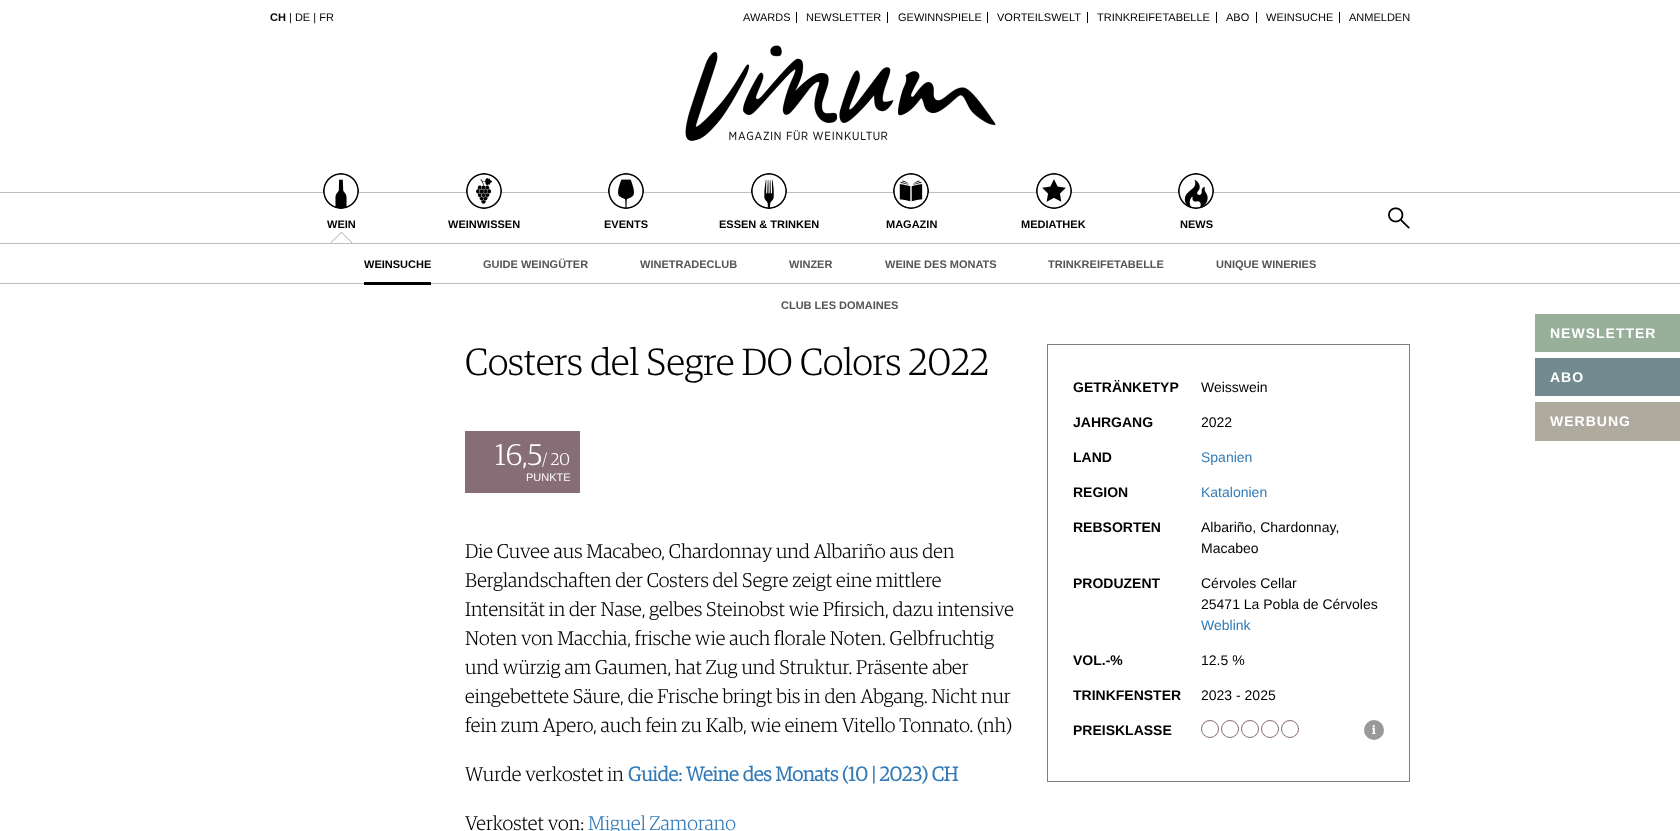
<svg xmlns="http://www.w3.org/2000/svg" width="1680" height="831">
<rect width="100%" height="100%" fill="#fff"/>
<text x="270" y="21" style="font-family:Liberation Sans;font-size:11px;font-weight:bold;fill:#000">CH</text>
<text x="289" y="21" style="font-family:Liberation Sans;font-size:11px;fill:#000">| DE | FR</text>
<rect x="796" y="12" width="1" height="11" fill="#000"/>
<text x="743" y="21" style="font-family:Liberation Sans;font-size:11px;fill:#000">AWARDS</text>
<rect x="887" y="12" width="1" height="11" fill="#000"/>
<text x="806" y="21" style="font-family:Liberation Sans;font-size:11px;fill:#000">NEWSLETTER</text>
<rect x="987" y="12" width="1" height="11" fill="#000"/>
<text x="898" y="21" style="font-family:Liberation Sans;font-size:11px;fill:#000">GEWINNSPIELE</text>
<rect x="1087" y="12" width="1" height="11" fill="#000"/>
<text x="997" y="21" style="font-family:Liberation Sans;font-size:11px;fill:#000">VORTEILSWELT</text>
<rect x="1216" y="12" width="1" height="11" fill="#000"/>
<text x="1097" y="21" style="font-family:Liberation Sans;font-size:11px;fill:#000">TRINKREIFETABELLE</text>
<rect x="1256" y="12" width="1" height="11" fill="#000"/>
<text x="1226" y="21" style="font-family:Liberation Sans;font-size:11px;fill:#000">ABO</text>
<rect x="1339" y="12" width="1" height="11" fill="#000"/>
<text x="1266" y="21" style="font-family:Liberation Sans;font-size:11px;fill:#000">WEINSUCHE</text>
<text x="1349" y="21" style="font-family:Liberation Sans;font-size:11px;fill:#000">ANMELDEN</text>
<image x="685" y="45" width="311" height="96" href="media/1.png"/>
<rect y="192" width="1680" height="1" fill="#bfbfbf"/>
<rect y="243" width="1680" height="1" fill="#bfbfbf"/>
<image x="330" y="232" width="23" height="11" href="media/2.png"/>
<circle cx="341" cy="191" r="18" fill="#fff"/>
<image x="323" y="173" width="36" height="36" href="media/3.png"/>
<text x="327" y="228" style="font-family:Liberation Sans;font-size:11px;font-weight:bold;fill:#000">WEIN</text>
<circle cx="484" cy="191" r="18" fill="#fff"/>
<image x="466" y="173" width="36" height="36" href="media/4.png"/>
<text x="448" y="228" style="font-family:Liberation Sans;font-size:11px;font-weight:bold;fill:#000">WEINWISSEN</text>
<circle cx="626" cy="191" r="18" fill="#fff"/>
<image x="608" y="173" width="36" height="36" href="media/5.png"/>
<text x="604" y="228" style="font-family:Liberation Sans;font-size:11px;font-weight:bold;fill:#000">EVENTS</text>
<circle cx="769" cy="191" r="18" fill="#fff"/>
<image x="751" y="173" width="36" height="36" href="media/6.png"/>
<text x="719" y="228" style="font-family:Liberation Sans;font-size:11px;font-weight:bold;fill:#000">ESSEN &amp; TRINKEN</text>
<circle cx="911" cy="191" r="18" fill="#fff"/>
<image x="893" y="173" width="36" height="36" href="media/7.png"/>
<text x="886" y="228" style="font-family:Liberation Sans;font-size:11px;font-weight:bold;fill:#000">MAGAZIN</text>
<circle cx="1054" cy="191" r="18" fill="#fff"/>
<image x="1036" y="173" width="36" height="36" href="media/8.png"/>
<text x="1021" y="228" style="font-family:Liberation Sans;font-size:11px;font-weight:bold;fill:#000">MEDIATHEK</text>
<circle cx="1196" cy="191" r="18" fill="#fff"/>
<image x="1178" y="173" width="36" height="36" href="media/9.png"/>
<text x="1180" y="228" style="font-family:Liberation Sans;font-size:11px;font-weight:bold;fill:#000">NEWS</text>
<image x="1388" y="207" width="22" height="22" href="media/10.png"/>
<rect y="283" width="1680" height="1" fill="#bfbfbf"/>
<rect x="364" y="282" width="67" height="3" fill="#000"/>
<text x="364" y="268" style="font-family:Liberation Sans;font-size:11px;font-weight:bold;fill:#000">WEINSUCHE</text>
<text x="483" y="268" style="font-family:Liberation Sans;font-size:11px;font-weight:bold;fill:#555">GUIDE WEINGÜTER</text>
<text x="640" y="268" style="font-family:Liberation Sans;font-size:11px;font-weight:bold;fill:#555">WINETRADECLUB</text>
<text x="789" y="268" style="font-family:Liberation Sans;font-size:11px;font-weight:bold;fill:#555">WINZER</text>
<text x="885" y="268" style="font-family:Liberation Sans;font-size:11px;font-weight:bold;fill:#555">WEINE DES MONATS</text>
<text x="1048" y="268" style="font-family:Liberation Sans;font-size:11px;font-weight:bold;fill:#555">TRINKREIFETABELLE</text>
<text x="1216" y="268" style="font-family:Liberation Sans;font-size:11px;font-weight:bold;fill:#555">UNIQUE WINERIES</text>
<text x="781" y="309" style="font-family:Liberation Sans;font-size:11px;font-weight:bold;fill:#555">CLUB LES DOMAINES</text>
<text x="465" y="375" style="font-family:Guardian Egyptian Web;font-size:38px;font-weight:300;fill:#000">Costers del Segre DO Colors 2022</text>
<rect x="465" y="431" width="115" height="62" fill="#876d75"/>
<text x="495" y="465" style="font-family:Guardian Egyptian Web;font-size:30px;font-weight:300;fill:#fff">16,5</text>
<text x="542" y="465" style="font-family:Guardian Egyptian Web;font-size:17px;font-weight:300;fill:#fff">/ 20</text>
<text x="526" y="481" style="font-family:Liberation Sans;font-size:11px;fill:#fff">PUNKTE</text>
<text x="465" y="558" style="font-family:Guardian Egyptian Web;font-size:20px;font-weight:300;fill:#000">Die Cuvee aus Macabeo, Chardonnay und Albariño aus den</text>
<text x="465" y="587" style="font-family:Guardian Egyptian Web;font-size:20px;font-weight:300;fill:#000">Berglandschaften der Costers del Segre zeigt eine mittlere</text>
<text x="465" y="616" style="font-family:Guardian Egyptian Web;font-size:20px;font-weight:300;fill:#000">Intensität in der Nase, gelbes Steinobst wie Pfirsich, dazu intensive</text>
<text x="465" y="645" style="font-family:Guardian Egyptian Web;font-size:20px;font-weight:300;fill:#000">Noten von Macchia, frische wie auch florale Noten. Gelbfruchtig</text>
<text x="465" y="674" style="font-family:Guardian Egyptian Web;font-size:20px;font-weight:300;fill:#000">und würzig am Gaumen, hat Zug und Struktur. Präsente aber</text>
<text x="465" y="703" style="font-family:Guardian Egyptian Web;font-size:20px;font-weight:300;fill:#000">eingebettete Säure, die Frische bringt bis in den Abgang. Nicht nur</text>
<text x="465" y="732" style="font-family:Guardian Egyptian Web;font-size:20px;font-weight:300;fill:#000">fein zum Apero, auch fein zu Kalb, wie einem Vitello Tonnato. (nh)</text>
<text x="465" y="781" style="font-family:Guardian Egyptian Web;font-size:20px;font-weight:300;fill:#000">Wurde verkostet in</text>
<text x="628" y="781" style="font-family:Guardian Egyptian Web;font-size:20px;font-weight:bold;fill:#337ab7">Guide: Weine des Monats (10 | 2023) CH</text>
<text x="465" y="830" style="font-family:Guardian Egyptian Web;font-size:20px;font-weight:300;fill:#000">Verkostet von:</text>
<text x="588" y="830" style="font-family:Guardian Egyptian Web;font-size:20px;font-weight:300;fill:#337ab7">Miguel Zamorano</text>
<rect x="1047.5" y="344.5" width="362" height="437" fill="none" stroke="#7f7f7f"/>
<text x="1073" y="392" style="font-family:Liberation Sans;font-size:14px;font-weight:bold;fill:#000">GETRÄNKETYP</text>
<text x="1201" y="392" style="font-family:Liberation Sans;font-size:14px;fill:#000">Weisswein</text>
<text x="1073" y="427" style="font-family:Liberation Sans;font-size:14px;font-weight:bold;fill:#000">JAHRGANG</text>
<text x="1201" y="427" style="font-family:Liberation Sans;font-size:14px;fill:#000">2022</text>
<text x="1073" y="462" style="font-family:Liberation Sans;font-size:14px;font-weight:bold;fill:#000">LAND</text>
<text x="1201" y="462" style="font-family:Liberation Sans;font-size:14px;fill:#337ab7">Spanien</text>
<text x="1073" y="497" style="font-family:Liberation Sans;font-size:14px;font-weight:bold;fill:#000">REGION</text>
<text x="1201" y="497" style="font-family:Liberation Sans;font-size:14px;fill:#337ab7">Katalonien</text>
<text x="1073" y="532" style="font-family:Liberation Sans;font-size:14px;font-weight:bold;fill:#000">REBSORTEN</text>
<text x="1201" y="532" style="font-family:Liberation Sans;font-size:14px;fill:#000">Albariño, Chardonnay,</text>
<text x="1201" y="553" style="font-family:Liberation Sans;font-size:14px;fill:#000">Macabeo</text>
<text x="1073" y="588" style="font-family:Liberation Sans;font-size:14px;font-weight:bold;fill:#000">PRODUZENT</text>
<text x="1201" y="588" style="font-family:Liberation Sans;font-size:14px;fill:#000">Cérvoles Cellar</text>
<text x="1201" y="609" style="font-family:Liberation Sans;font-size:14px;fill:#000">25471 La Pobla de Cérvoles</text>
<text x="1201" y="630" style="font-family:Liberation Sans;font-size:14px;fill:#337ab7">Weblink</text>
<text x="1073" y="665" style="font-family:Liberation Sans;font-size:14px;font-weight:bold;fill:#000">VOL.-%</text>
<text x="1201" y="665" style="font-family:Liberation Sans;font-size:14px;fill:#000">12.5 %</text>
<text x="1073" y="700" style="font-family:Liberation Sans;font-size:14px;font-weight:bold;fill:#000">TRINKFENSTER</text>
<text x="1201" y="700" style="font-family:Liberation Sans;font-size:14px;fill:#000">2023 - 2025</text>
<text x="1073" y="735" style="font-family:Liberation Sans;font-size:14px;font-weight:bold;fill:#000">PREISKLASSE</text>
<circle cx="1210" cy="729" r="8.5" fill="none" stroke="#876d75"/>
<circle cx="1230" cy="729" r="8.5" fill="none" stroke="#876d75"/>
<circle cx="1250" cy="729" r="8.5" fill="none" stroke="#876d75"/>
<circle cx="1270" cy="729" r="8.5" fill="none" stroke="#876d75"/>
<circle cx="1290" cy="729" r="8.5" fill="none" stroke="#876d75"/>
<circle cx="1374" cy="730" r="10" fill="#999"/>
<text x="1372" y="734" style="font-family:Guardian Egyptian Web;font-size:12px;font-weight:600;fill:#fff">i</text>
<rect x="1535" y="314" width="145" height="38" fill="#98af99"/>
<text x="1550" y="338" style="font-family:Liberation Sans;font-size:14px;font-weight:bold;letter-spacing:1px;fill:#fff">NEWSLETTER</text>
<rect x="1535" y="358" width="145" height="38" fill="#738b90"/>
<text x="1550" y="382" style="font-family:Liberation Sans;font-size:14px;font-weight:bold;letter-spacing:1px;fill:#fff">ABO</text>
<rect x="1535" y="402" width="145" height="39" fill="#afaa9e"/>
<text x="1550" y="426" style="font-family:Liberation Sans;font-size:14px;font-weight:bold;letter-spacing:1px;fill:#fff">WERBUNG</text>
</svg>
